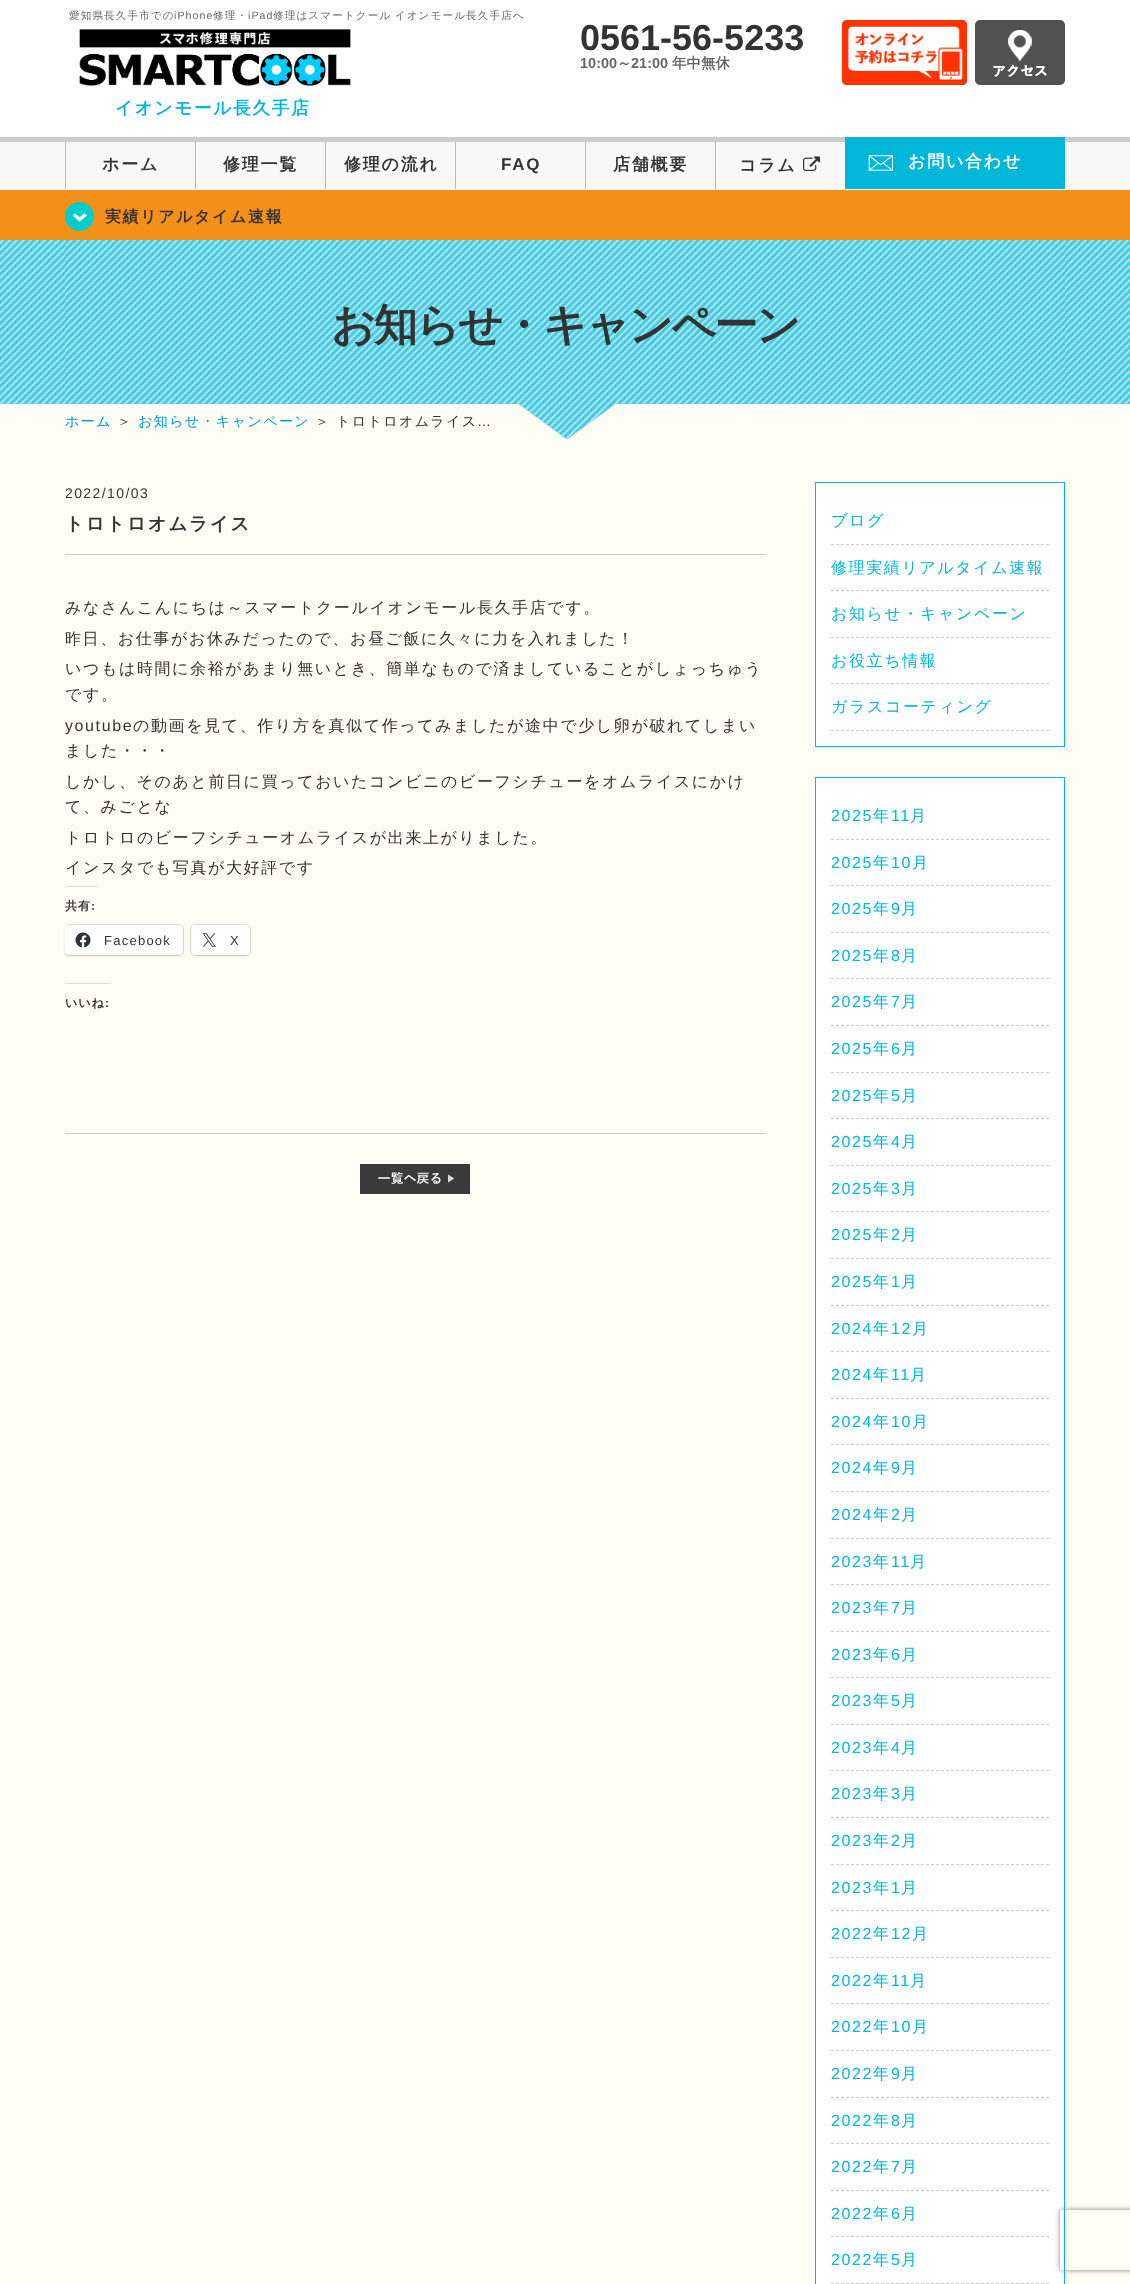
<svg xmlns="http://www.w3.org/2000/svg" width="1130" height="2284">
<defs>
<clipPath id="clip1"><rect x="65" y="555" width="700" height="578"/></clipPath>
<clipPath id="clip2"><path d="M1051 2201h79v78h-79zm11 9h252c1 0 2 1 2 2v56c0 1-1 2-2 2h-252c-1 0-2-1-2-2v-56c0-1 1-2 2-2z" clip-rule="evenodd"/></clipPath>
</defs>
<rect width="100%" height="100%" fill="#fff"/>
<text x="69" y="19" style="font-family:WenQuanYi Zen Hei;font-size:10.6px;font-weight:500;letter-spacing:1.1px;fill:#666">愛知県長久手市での</text>
<text x="174" y="19" style="font-family:Liberation Sans;font-size:10.6px;letter-spacing:1.1px;fill:#666">iPhone</text>
<text x="213" y="19" style="font-family:WenQuanYi Zen Hei;font-size:10.6px;font-weight:500;letter-spacing:1.1px;fill:#666">修理・</text>
<text x="248" y="19" style="font-family:Liberation Sans;font-size:10.6px;letter-spacing:1.1px;fill:#666">iPad</text>
<text x="273" y="19" word-spacing="-1" style="font-family:WenQuanYi Zen Hei;font-size:10.6px;font-weight:500;letter-spacing:1.1px;fill:#666">修理はスマートクール イオンモール長久手店へ</text>
<image x="79" y="29" width="272" height="57" href="media/1.png"/>
<text x="115" y="114" style="font-family:WenQuanYi Zen Hei;font-size:17.6px;font-weight:bold;letter-spacing:1.75px;fill:#00b7da">イオンモール長久手店</text>
<text x="580" y="50" style="font-family:Liberation Sans;font-size:36px;font-weight:bold;fill:#333">0561-56-5233</text>
<text x="580" y="68" style="font-family:Liberation Sans;font-size:14.5px;font-weight:bold;fill:#666">10:00</text>
<text x="617" y="68" style="font-family:WenQuanYi Zen Hei;font-size:14.5px;font-weight:bold;fill:#666">～</text>
<text x="631" y="68" style="font-family:Liberation Sans;font-size:14.5px;font-weight:bold;fill:#666">21:00</text>
<text x="672" y="68" style="font-family:WenQuanYi Zen Hei;font-size:14.5px;font-weight:bold;fill:#666">年中無休</text>
<image x="842" y="20" width="125" height="65" href="media/2.png"/>
<image x="975" y="20" width="90" height="65" href="media/3.png"/>
<rect y="142" width="1130" height="48" fill="#f8f8f8"/>
<rect y="137" width="1130" height="5" fill="#ccc"/>
<rect x="65" y="142" width="1" height="47" fill="#b9b9b9"/>
<text x="102" y="170" style="font-family:WenQuanYi Zen Hei;font-size:17px;font-weight:bold;letter-spacing:1.75px;fill:#333">ホーム</text>
<rect x="195" y="142" width="1" height="47" fill="#b9b9b9"/>
<text x="223" y="170" style="font-family:WenQuanYi Zen Hei;font-size:17px;font-weight:bold;letter-spacing:1.75px;fill:#333">修理一覧</text>
<rect x="325" y="142" width="1" height="47" fill="#b9b9b9"/>
<text x="344" y="170" style="font-family:WenQuanYi Zen Hei;font-size:17px;font-weight:bold;letter-spacing:1.75px;fill:#333">修理の流れ</text>
<rect x="455" y="142" width="1" height="47" fill="#b9b9b9"/>
<text x="501" y="170" style="font-family:Liberation Sans;font-size:17px;font-weight:bold;letter-spacing:1.75px;fill:#333">FAQ</text>
<rect x="585" y="142" width="1" height="47" fill="#b9b9b9"/>
<text x="613" y="170" style="font-family:WenQuanYi Zen Hei;font-size:17px;font-weight:bold;letter-spacing:1.75px;fill:#333">店舗概要</text>
<rect x="715" y="142" width="1" height="48" fill="#b9b9b9"/>
<text x="739" y="171" style="font-family:WenQuanYi Zen Hei;font-size:17px;font-weight:bold;letter-spacing:1.75px;fill:#333">コラム</text>
<image x="803" y="156" width="17" height="15" href="media/4.png"/>
<rect x="845" y="137" width="220" height="52" fill="#00b7da"/>
<image x="868" y="155" width="25" height="16" href="media/5.png"/>
<text x="908" y="167" style="font-family:WenQuanYi Zen Hei;font-size:17px;font-weight:bold;letter-spacing:1.75px;fill:#fff">お問い合わせ</text>
<rect y="190" width="1130" height="50" fill="#f29019"/>
<image x="65" y="202" width="29" height="29" href="media/6.png"/>
<text x="105" y="222" style="font-family:WenQuanYi Zen Hei;font-size:16px;font-weight:bold;letter-spacing:1.6px;fill:#333">実績リアルタイム速報</text>
<rect y="403" width="1130" height="1881" fill="#fdfdf3"/>
<image x="0" y="240" width="1130" height="200" href="media/7.png"/>
<text x="331" y="340" style="font-family:WenQuanYi Zen Hei;font-size:44px;font-weight:bold;letter-spacing:-2.25px;fill:#333">お知らせ・キャンペーン</text>
<text x="65" y="426" style="font-family:WenQuanYi Zen Hei;font-size:14px;font-weight:500;letter-spacing:1.4px;fill:#09c">ホーム</text>
<text x="117" y="426" style="font-family:WenQuanYi Zen Hei;font-size:14px;font-weight:500;letter-spacing:1.4px;fill:#333">＞</text>
<text x="138" y="426" style="font-family:WenQuanYi Zen Hei;font-size:14px;font-weight:500;letter-spacing:1.4px;fill:#09c">お知らせ・キャンペーン</text>
<text x="315" y="426" style="font-family:WenQuanYi Zen Hei;font-size:14px;font-weight:500;letter-spacing:1.4px;fill:#333">＞</text>
<text x="336" y="426" style="font-family:WenQuanYi Zen Hei;font-size:14px;font-weight:500;letter-spacing:1.4px;fill:#333">トロトロオムライス</text>
<text x="477" y="426" style="font-family:Liberation Sans;font-size:14px;letter-spacing:1.4px;fill:#333">…</text>
<text x="65" y="498" style="font-family:Liberation Sans;font-size:14px;letter-spacing:1.4px;fill:#333">2022/10/03</text>
<text x="65" y="530" style="font-family:WenQuanYi Zen Hei;font-size:18.5px;font-weight:bold;letter-spacing:1.75px;fill:#333">トロトロオムライス</text>
<rect x="65" y="554" width="700" height="1" fill="#ccc"/>
<rect x="65" y="1133" width="700" height="1" fill="#ccc"/>
<text x="65" y="613" style="font-family:WenQuanYi Zen Hei;font-size:16px;font-weight:500;letter-spacing:1.6px;fill:#333">みなさんこんにちは～スマートクールイオンモール長久手店です。</text>
<text x="65" y="644" style="font-family:WenQuanYi Zen Hei;font-size:16px;font-weight:500;letter-spacing:1.6px;fill:#333">昨日、お仕事がお休みだったので、お昼ご飯に久々に力を入れました！</text>
<text x="65" y="674" style="font-family:WenQuanYi Zen Hei;font-size:16px;font-weight:500;letter-spacing:1.6px;fill:#333">いつもは時間に余裕があまり無いとき、簡単なもので済ましていることがしょっちゅう</text>
<text x="65" y="700" style="font-family:WenQuanYi Zen Hei;font-size:16px;font-weight:500;letter-spacing:1.6px;fill:#333">です。</text>
<text x="65" y="731" style="font-family:Liberation Sans;font-size:16px;letter-spacing:1.6px;fill:#333">youtube</text>
<text x="133" y="731" style="font-family:WenQuanYi Zen Hei;font-size:16px;font-weight:500;letter-spacing:1.6px;fill:#333">の動画を見て、作り方を真似て作ってみましたが途中で少し卵が破れてしまい</text>
<text x="65" y="756" style="font-family:WenQuanYi Zen Hei;font-size:16px;font-weight:500;letter-spacing:1.6px;fill:#333">ました・・・</text>
<text x="65" y="787" style="font-family:WenQuanYi Zen Hei;font-size:16px;font-weight:500;letter-spacing:1.6px;fill:#333">しかし、そのあと前日に買っておいたコンビニのビーフシチューをオムライスにかけ</text>
<text x="65" y="812" style="font-family:WenQuanYi Zen Hei;font-size:16px;font-weight:500;letter-spacing:1.6px;fill:#333">て、みごとな</text>
<text x="65" y="843" style="font-family:WenQuanYi Zen Hei;font-size:16px;font-weight:500;letter-spacing:1.6px;fill:#333">トロトロのビーフシチューオムライスが出来上がりました。</text>
<text x="65" y="873" style="font-family:WenQuanYi Zen Hei;font-size:16px;font-weight:500;letter-spacing:1.6px;fill:#333">インスタでも写真が大好評です</text>
<rect x="65" y="886" width="32" height="1" fill="#dcdcde"/>
<text x="65" y="910" style="font-family:WenQuanYi Zen Hei;font-size:12px;font-weight:bold;letter-spacing:1px;fill:#333">共有</text>
<text x="91" y="910" style="font-family:Liberation Sans;font-size:12px;font-weight:bold;letter-spacing:1px;fill:#333">:</text>
<g clip-path="url(#clip1)">
<rect x="64.5" y="924.5" width="119" height="31" rx="4.5" fill="none" stroke="#dfdfd6"/>
</g>
<rect x="65" y="926" width="118" height="30" rx="4" fill="#0000001f" filter="blur(1px)"/>
<rect x="65" y="925" width="118" height="30" rx="4" fill="#fff"/>
<image x="75" y="932" width="16" height="16" href="media/8.png"/>
<text x="104" y="945" style="font-family:Liberation Sans;font-size:13px;letter-spacing:1.25px;fill:#333">Facebook</text>
<rect x="190.5" y="924.5" width="60" height="31" rx="4.5" fill="none" stroke="#dfdfd6"/>
<rect x="191" y="926" width="59" height="30" rx="4" fill="#0000001f" filter="blur(1px)"/>
<rect x="191" y="925" width="59" height="30" rx="4" fill="#fff"/>
<image x="202" y="933" width="14" height="14" href="media/9.png"/>
<text x="230" y="945" style="font-family:Liberation Sans;font-size:13px;letter-spacing:1.25px;fill:#333">X</text>
<rect x="65" y="983" width="46" height="1" fill="#dcdcde"/>
<text x="65" y="1007" style="font-family:WenQuanYi Zen Hei;font-size:12px;font-weight:bold;letter-spacing:1px;fill:#333">いいね</text>
<text x="105" y="1007" style="font-family:Liberation Sans;font-size:12px;font-weight:bold;letter-spacing:1px;fill:#333">:</text>
<image x="360" y="1164" width="110" height="30" href="media/10.png"/>
<rect x="815.5" y="482.5" width="249" height="264" fill="#fff" stroke="#00b7da"/>
<path d="M831 544.5h218" fill="none" stroke="#ccc" stroke-dasharray="3 2"/>
<text x="831" y="526" style="font-family:WenQuanYi Zen Hei;font-size:16px;font-weight:500;letter-spacing:1.6px;fill:#00b7da">ブログ</text>
<path d="M831 590.5h218" fill="none" stroke="#ccc" stroke-dasharray="3 2"/>
<text x="831" y="573" style="font-family:WenQuanYi Zen Hei;font-size:16px;font-weight:500;letter-spacing:1.6px;fill:#00b7da">修理実績リアルタイム速報</text>
<path d="M831 637.5h218" fill="none" stroke="#ccc" stroke-dasharray="3 2"/>
<text x="831" y="619" style="font-family:WenQuanYi Zen Hei;font-size:16px;font-weight:500;letter-spacing:1.6px;fill:#00b7da">お知らせ・キャンペーン</text>
<path d="M831 683.5h218" fill="none" stroke="#ccc" stroke-dasharray="3 2"/>
<text x="831" y="666" style="font-family:WenQuanYi Zen Hei;font-size:16px;font-weight:500;letter-spacing:1.6px;fill:#00b7da">お役立ち情報</text>
<path d="M831 730.5h218" fill="none" stroke="#ccc" stroke-dasharray="3 2"/>
<text x="831" y="712" style="font-family:WenQuanYi Zen Hei;font-size:16px;font-weight:500;letter-spacing:1.6px;fill:#00b7da">ガラスコーティング</text>
<rect x="815.5" y="777.5" width="249" height="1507" fill="#fff" stroke="#00b7da"/>
<path d="M831 839.5h218" fill="none" stroke="#ccc" stroke-dasharray="3 2"/>
<text x="831" y="821" style="font-family:Liberation Sans;font-size:16px;letter-spacing:1.6px;fill:#00b7da">2025</text>
<text x="873" y="821" style="font-family:WenQuanYi Zen Hei;font-size:16px;font-weight:500;letter-spacing:1.6px;fill:#00b7da">年</text>
<text x="891" y="821" style="font-family:Liberation Sans;font-size:16px;letter-spacing:1.6px;fill:#00b7da">11</text>
<text x="910" y="821" style="font-family:WenQuanYi Zen Hei;font-size:16px;font-weight:500;letter-spacing:1.6px;fill:#00b7da">月</text>
<path d="M831 885.5h218" fill="none" stroke="#ccc" stroke-dasharray="3 2"/>
<text x="831" y="868" style="font-family:Liberation Sans;font-size:16px;letter-spacing:1.6px;fill:#00b7da">2025</text>
<text x="873" y="868" style="font-family:WenQuanYi Zen Hei;font-size:16px;font-weight:500;letter-spacing:1.6px;fill:#00b7da">年</text>
<text x="891" y="868" style="font-family:Liberation Sans;font-size:16px;letter-spacing:1.6px;fill:#00b7da">10</text>
<text x="912" y="868" style="font-family:WenQuanYi Zen Hei;font-size:16px;font-weight:500;letter-spacing:1.6px;fill:#00b7da">月</text>
<path d="M831 932.5h218" fill="none" stroke="#ccc" stroke-dasharray="3 2"/>
<text x="831" y="914" style="font-family:Liberation Sans;font-size:16px;letter-spacing:1.6px;fill:#00b7da">2025</text>
<text x="873" y="914" style="font-family:WenQuanYi Zen Hei;font-size:16px;font-weight:500;letter-spacing:1.6px;fill:#00b7da">年</text>
<text x="891" y="914" style="font-family:Liberation Sans;font-size:16px;letter-spacing:1.6px;fill:#00b7da">9</text>
<text x="901" y="914" style="font-family:WenQuanYi Zen Hei;font-size:16px;font-weight:500;letter-spacing:1.6px;fill:#00b7da">月</text>
<path d="M831 978.5h218" fill="none" stroke="#ccc" stroke-dasharray="3 2"/>
<text x="831" y="961" style="font-family:Liberation Sans;font-size:16px;letter-spacing:1.6px;fill:#00b7da">2025</text>
<text x="873" y="961" style="font-family:WenQuanYi Zen Hei;font-size:16px;font-weight:500;letter-spacing:1.6px;fill:#00b7da">年</text>
<text x="891" y="961" style="font-family:Liberation Sans;font-size:16px;letter-spacing:1.6px;fill:#00b7da">8</text>
<text x="901" y="961" style="font-family:WenQuanYi Zen Hei;font-size:16px;font-weight:500;letter-spacing:1.6px;fill:#00b7da">月</text>
<path d="M831 1025.5h218" fill="none" stroke="#ccc" stroke-dasharray="3 2"/>
<text x="831" y="1007" style="font-family:Liberation Sans;font-size:16px;letter-spacing:1.6px;fill:#00b7da">2025</text>
<text x="873" y="1007" style="font-family:WenQuanYi Zen Hei;font-size:16px;font-weight:500;letter-spacing:1.6px;fill:#00b7da">年</text>
<text x="891" y="1007" style="font-family:Liberation Sans;font-size:16px;letter-spacing:1.6px;fill:#00b7da">7</text>
<text x="901" y="1007" style="font-family:WenQuanYi Zen Hei;font-size:16px;font-weight:500;letter-spacing:1.6px;fill:#00b7da">月</text>
<path d="M831 1072.5h218" fill="none" stroke="#ccc" stroke-dasharray="3 2"/>
<text x="831" y="1054" style="font-family:Liberation Sans;font-size:16px;letter-spacing:1.6px;fill:#00b7da">2025</text>
<text x="873" y="1054" style="font-family:WenQuanYi Zen Hei;font-size:16px;font-weight:500;letter-spacing:1.6px;fill:#00b7da">年</text>
<text x="891" y="1054" style="font-family:Liberation Sans;font-size:16px;letter-spacing:1.6px;fill:#00b7da">6</text>
<text x="901" y="1054" style="font-family:WenQuanYi Zen Hei;font-size:16px;font-weight:500;letter-spacing:1.6px;fill:#00b7da">月</text>
<path d="M831 1118.5h218" fill="none" stroke="#ccc" stroke-dasharray="3 2"/>
<text x="831" y="1101" style="font-family:Liberation Sans;font-size:16px;letter-spacing:1.6px;fill:#00b7da">2025</text>
<text x="873" y="1101" style="font-family:WenQuanYi Zen Hei;font-size:16px;font-weight:500;letter-spacing:1.6px;fill:#00b7da">年</text>
<text x="891" y="1101" style="font-family:Liberation Sans;font-size:16px;letter-spacing:1.6px;fill:#00b7da">5</text>
<text x="901" y="1101" style="font-family:WenQuanYi Zen Hei;font-size:16px;font-weight:500;letter-spacing:1.6px;fill:#00b7da">月</text>
<path d="M831 1165.5h218" fill="none" stroke="#ccc" stroke-dasharray="3 2"/>
<text x="831" y="1147" style="font-family:Liberation Sans;font-size:16px;letter-spacing:1.6px;fill:#00b7da">2025</text>
<text x="873" y="1147" style="font-family:WenQuanYi Zen Hei;font-size:16px;font-weight:500;letter-spacing:1.6px;fill:#00b7da">年</text>
<text x="891" y="1147" style="font-family:Liberation Sans;font-size:16px;letter-spacing:1.6px;fill:#00b7da">4</text>
<text x="901" y="1147" style="font-family:WenQuanYi Zen Hei;font-size:16px;font-weight:500;letter-spacing:1.6px;fill:#00b7da">月</text>
<path d="M831 1211.5h218" fill="none" stroke="#ccc" stroke-dasharray="3 2"/>
<text x="831" y="1194" style="font-family:Liberation Sans;font-size:16px;letter-spacing:1.6px;fill:#00b7da">2025</text>
<text x="873" y="1194" style="font-family:WenQuanYi Zen Hei;font-size:16px;font-weight:500;letter-spacing:1.6px;fill:#00b7da">年</text>
<text x="891" y="1194" style="font-family:Liberation Sans;font-size:16px;letter-spacing:1.6px;fill:#00b7da">3</text>
<text x="901" y="1194" style="font-family:WenQuanYi Zen Hei;font-size:16px;font-weight:500;letter-spacing:1.6px;fill:#00b7da">月</text>
<path d="M831 1258.5h218" fill="none" stroke="#ccc" stroke-dasharray="3 2"/>
<text x="831" y="1240" style="font-family:Liberation Sans;font-size:16px;letter-spacing:1.6px;fill:#00b7da">2025</text>
<text x="873" y="1240" style="font-family:WenQuanYi Zen Hei;font-size:16px;font-weight:500;letter-spacing:1.6px;fill:#00b7da">年</text>
<text x="891" y="1240" style="font-family:Liberation Sans;font-size:16px;letter-spacing:1.6px;fill:#00b7da">2</text>
<text x="901" y="1240" style="font-family:WenQuanYi Zen Hei;font-size:16px;font-weight:500;letter-spacing:1.6px;fill:#00b7da">月</text>
<path d="M831 1305.5h218" fill="none" stroke="#ccc" stroke-dasharray="3 2"/>
<text x="831" y="1287" style="font-family:Liberation Sans;font-size:16px;letter-spacing:1.6px;fill:#00b7da">2025</text>
<text x="873" y="1287" style="font-family:WenQuanYi Zen Hei;font-size:16px;font-weight:500;letter-spacing:1.6px;fill:#00b7da">年</text>
<text x="891" y="1287" style="font-family:Liberation Sans;font-size:16px;letter-spacing:1.6px;fill:#00b7da">1</text>
<text x="901" y="1287" style="font-family:WenQuanYi Zen Hei;font-size:16px;font-weight:500;letter-spacing:1.6px;fill:#00b7da">月</text>
<path d="M831 1351.5h218" fill="none" stroke="#ccc" stroke-dasharray="3 2"/>
<text x="831" y="1334" style="font-family:Liberation Sans;font-size:16px;letter-spacing:1.6px;fill:#00b7da">2024</text>
<text x="873" y="1334" style="font-family:WenQuanYi Zen Hei;font-size:16px;font-weight:500;letter-spacing:1.6px;fill:#00b7da">年</text>
<text x="891" y="1334" style="font-family:Liberation Sans;font-size:16px;letter-spacing:1.6px;fill:#00b7da">12</text>
<text x="912" y="1334" style="font-family:WenQuanYi Zen Hei;font-size:16px;font-weight:500;letter-spacing:1.6px;fill:#00b7da">月</text>
<path d="M831 1398.5h218" fill="none" stroke="#ccc" stroke-dasharray="3 2"/>
<text x="831" y="1380" style="font-family:Liberation Sans;font-size:16px;letter-spacing:1.6px;fill:#00b7da">2024</text>
<text x="873" y="1380" style="font-family:WenQuanYi Zen Hei;font-size:16px;font-weight:500;letter-spacing:1.6px;fill:#00b7da">年</text>
<text x="891" y="1380" style="font-family:Liberation Sans;font-size:16px;letter-spacing:1.6px;fill:#00b7da">11</text>
<text x="910" y="1380" style="font-family:WenQuanYi Zen Hei;font-size:16px;font-weight:500;letter-spacing:1.6px;fill:#00b7da">月</text>
<path d="M831 1444.5h218" fill="none" stroke="#ccc" stroke-dasharray="3 2"/>
<text x="831" y="1427" style="font-family:Liberation Sans;font-size:16px;letter-spacing:1.6px;fill:#00b7da">2024</text>
<text x="873" y="1427" style="font-family:WenQuanYi Zen Hei;font-size:16px;font-weight:500;letter-spacing:1.6px;fill:#00b7da">年</text>
<text x="891" y="1427" style="font-family:Liberation Sans;font-size:16px;letter-spacing:1.6px;fill:#00b7da">10</text>
<text x="912" y="1427" style="font-family:WenQuanYi Zen Hei;font-size:16px;font-weight:500;letter-spacing:1.6px;fill:#00b7da">月</text>
<path d="M831 1491.5h218" fill="none" stroke="#ccc" stroke-dasharray="3 2"/>
<text x="831" y="1473" style="font-family:Liberation Sans;font-size:16px;letter-spacing:1.6px;fill:#00b7da">2024</text>
<text x="873" y="1473" style="font-family:WenQuanYi Zen Hei;font-size:16px;font-weight:500;letter-spacing:1.6px;fill:#00b7da">年</text>
<text x="891" y="1473" style="font-family:Liberation Sans;font-size:16px;letter-spacing:1.6px;fill:#00b7da">9</text>
<text x="901" y="1473" style="font-family:WenQuanYi Zen Hei;font-size:16px;font-weight:500;letter-spacing:1.6px;fill:#00b7da">月</text>
<path d="M831 1538.5h218" fill="none" stroke="#ccc" stroke-dasharray="3 2"/>
<text x="831" y="1520" style="font-family:Liberation Sans;font-size:16px;letter-spacing:1.6px;fill:#00b7da">2024</text>
<text x="873" y="1520" style="font-family:WenQuanYi Zen Hei;font-size:16px;font-weight:500;letter-spacing:1.6px;fill:#00b7da">年</text>
<text x="891" y="1520" style="font-family:Liberation Sans;font-size:16px;letter-spacing:1.6px;fill:#00b7da">2</text>
<text x="901" y="1520" style="font-family:WenQuanYi Zen Hei;font-size:16px;font-weight:500;letter-spacing:1.6px;fill:#00b7da">月</text>
<path d="M831 1584.5h218" fill="none" stroke="#ccc" stroke-dasharray="3 2"/>
<text x="831" y="1567" style="font-family:Liberation Sans;font-size:16px;letter-spacing:1.6px;fill:#00b7da">2023</text>
<text x="873" y="1567" style="font-family:WenQuanYi Zen Hei;font-size:16px;font-weight:500;letter-spacing:1.6px;fill:#00b7da">年</text>
<text x="891" y="1567" style="font-family:Liberation Sans;font-size:16px;letter-spacing:1.6px;fill:#00b7da">11</text>
<text x="910" y="1567" style="font-family:WenQuanYi Zen Hei;font-size:16px;font-weight:500;letter-spacing:1.6px;fill:#00b7da">月</text>
<path d="M831 1631.5h218" fill="none" stroke="#ccc" stroke-dasharray="3 2"/>
<text x="831" y="1613" style="font-family:Liberation Sans;font-size:16px;letter-spacing:1.6px;fill:#00b7da">2023</text>
<text x="873" y="1613" style="font-family:WenQuanYi Zen Hei;font-size:16px;font-weight:500;letter-spacing:1.6px;fill:#00b7da">年</text>
<text x="891" y="1613" style="font-family:Liberation Sans;font-size:16px;letter-spacing:1.6px;fill:#00b7da">7</text>
<text x="901" y="1613" style="font-family:WenQuanYi Zen Hei;font-size:16px;font-weight:500;letter-spacing:1.6px;fill:#00b7da">月</text>
<path d="M831 1677.5h218" fill="none" stroke="#ccc" stroke-dasharray="3 2"/>
<text x="831" y="1660" style="font-family:Liberation Sans;font-size:16px;letter-spacing:1.6px;fill:#00b7da">2023</text>
<text x="873" y="1660" style="font-family:WenQuanYi Zen Hei;font-size:16px;font-weight:500;letter-spacing:1.6px;fill:#00b7da">年</text>
<text x="891" y="1660" style="font-family:Liberation Sans;font-size:16px;letter-spacing:1.6px;fill:#00b7da">6</text>
<text x="901" y="1660" style="font-family:WenQuanYi Zen Hei;font-size:16px;font-weight:500;letter-spacing:1.6px;fill:#00b7da">月</text>
<path d="M831 1724.5h218" fill="none" stroke="#ccc" stroke-dasharray="3 2"/>
<text x="831" y="1706" style="font-family:Liberation Sans;font-size:16px;letter-spacing:1.6px;fill:#00b7da">2023</text>
<text x="873" y="1706" style="font-family:WenQuanYi Zen Hei;font-size:16px;font-weight:500;letter-spacing:1.6px;fill:#00b7da">年</text>
<text x="891" y="1706" style="font-family:Liberation Sans;font-size:16px;letter-spacing:1.6px;fill:#00b7da">5</text>
<text x="901" y="1706" style="font-family:WenQuanYi Zen Hei;font-size:16px;font-weight:500;letter-spacing:1.6px;fill:#00b7da">月</text>
<path d="M831 1770.5h218" fill="none" stroke="#ccc" stroke-dasharray="3 2"/>
<text x="831" y="1753" style="font-family:Liberation Sans;font-size:16px;letter-spacing:1.6px;fill:#00b7da">2023</text>
<text x="873" y="1753" style="font-family:WenQuanYi Zen Hei;font-size:16px;font-weight:500;letter-spacing:1.6px;fill:#00b7da">年</text>
<text x="891" y="1753" style="font-family:Liberation Sans;font-size:16px;letter-spacing:1.6px;fill:#00b7da">4</text>
<text x="901" y="1753" style="font-family:WenQuanYi Zen Hei;font-size:16px;font-weight:500;letter-spacing:1.6px;fill:#00b7da">月</text>
<path d="M831 1817.5h218" fill="none" stroke="#ccc" stroke-dasharray="3 2"/>
<text x="831" y="1799" style="font-family:Liberation Sans;font-size:16px;letter-spacing:1.6px;fill:#00b7da">2023</text>
<text x="873" y="1799" style="font-family:WenQuanYi Zen Hei;font-size:16px;font-weight:500;letter-spacing:1.6px;fill:#00b7da">年</text>
<text x="891" y="1799" style="font-family:Liberation Sans;font-size:16px;letter-spacing:1.6px;fill:#00b7da">3</text>
<text x="901" y="1799" style="font-family:WenQuanYi Zen Hei;font-size:16px;font-weight:500;letter-spacing:1.6px;fill:#00b7da">月</text>
<path d="M831 1864.5h218" fill="none" stroke="#ccc" stroke-dasharray="3 2"/>
<text x="831" y="1846" style="font-family:Liberation Sans;font-size:16px;letter-spacing:1.6px;fill:#00b7da">2023</text>
<text x="873" y="1846" style="font-family:WenQuanYi Zen Hei;font-size:16px;font-weight:500;letter-spacing:1.6px;fill:#00b7da">年</text>
<text x="891" y="1846" style="font-family:Liberation Sans;font-size:16px;letter-spacing:1.6px;fill:#00b7da">2</text>
<text x="901" y="1846" style="font-family:WenQuanYi Zen Hei;font-size:16px;font-weight:500;letter-spacing:1.6px;fill:#00b7da">月</text>
<path d="M831 1910.5h218" fill="none" stroke="#ccc" stroke-dasharray="3 2"/>
<text x="831" y="1893" style="font-family:Liberation Sans;font-size:16px;letter-spacing:1.6px;fill:#00b7da">2023</text>
<text x="873" y="1893" style="font-family:WenQuanYi Zen Hei;font-size:16px;font-weight:500;letter-spacing:1.6px;fill:#00b7da">年</text>
<text x="891" y="1893" style="font-family:Liberation Sans;font-size:16px;letter-spacing:1.6px;fill:#00b7da">1</text>
<text x="901" y="1893" style="font-family:WenQuanYi Zen Hei;font-size:16px;font-weight:500;letter-spacing:1.6px;fill:#00b7da">月</text>
<path d="M831 1957.5h218" fill="none" stroke="#ccc" stroke-dasharray="3 2"/>
<text x="831" y="1939" style="font-family:Liberation Sans;font-size:16px;letter-spacing:1.6px;fill:#00b7da">2022</text>
<text x="873" y="1939" style="font-family:WenQuanYi Zen Hei;font-size:16px;font-weight:500;letter-spacing:1.6px;fill:#00b7da">年</text>
<text x="891" y="1939" style="font-family:Liberation Sans;font-size:16px;letter-spacing:1.6px;fill:#00b7da">12</text>
<text x="912" y="1939" style="font-family:WenQuanYi Zen Hei;font-size:16px;font-weight:500;letter-spacing:1.6px;fill:#00b7da">月</text>
<path d="M831 2003.5h218" fill="none" stroke="#ccc" stroke-dasharray="3 2"/>
<text x="831" y="1986" style="font-family:Liberation Sans;font-size:16px;letter-spacing:1.6px;fill:#00b7da">2022</text>
<text x="873" y="1986" style="font-family:WenQuanYi Zen Hei;font-size:16px;font-weight:500;letter-spacing:1.6px;fill:#00b7da">年</text>
<text x="891" y="1986" style="font-family:Liberation Sans;font-size:16px;letter-spacing:1.6px;fill:#00b7da">11</text>
<text x="910" y="1986" style="font-family:WenQuanYi Zen Hei;font-size:16px;font-weight:500;letter-spacing:1.6px;fill:#00b7da">月</text>
<path d="M831 2050.5h218" fill="none" stroke="#ccc" stroke-dasharray="3 2"/>
<text x="831" y="2032" style="font-family:Liberation Sans;font-size:16px;letter-spacing:1.6px;fill:#00b7da">2022</text>
<text x="873" y="2032" style="font-family:WenQuanYi Zen Hei;font-size:16px;font-weight:500;letter-spacing:1.6px;fill:#00b7da">年</text>
<text x="891" y="2032" style="font-family:Liberation Sans;font-size:16px;letter-spacing:1.6px;fill:#00b7da">10</text>
<text x="912" y="2032" style="font-family:WenQuanYi Zen Hei;font-size:16px;font-weight:500;letter-spacing:1.6px;fill:#00b7da">月</text>
<path d="M831 2097.5h218" fill="none" stroke="#ccc" stroke-dasharray="3 2"/>
<text x="831" y="2079" style="font-family:Liberation Sans;font-size:16px;letter-spacing:1.6px;fill:#00b7da">2022</text>
<text x="873" y="2079" style="font-family:WenQuanYi Zen Hei;font-size:16px;font-weight:500;letter-spacing:1.6px;fill:#00b7da">年</text>
<text x="891" y="2079" style="font-family:Liberation Sans;font-size:16px;letter-spacing:1.6px;fill:#00b7da">9</text>
<text x="901" y="2079" style="font-family:WenQuanYi Zen Hei;font-size:16px;font-weight:500;letter-spacing:1.6px;fill:#00b7da">月</text>
<path d="M831 2143.5h218" fill="none" stroke="#ccc" stroke-dasharray="3 2"/>
<text x="831" y="2126" style="font-family:Liberation Sans;font-size:16px;letter-spacing:1.6px;fill:#00b7da">2022</text>
<text x="873" y="2126" style="font-family:WenQuanYi Zen Hei;font-size:16px;font-weight:500;letter-spacing:1.6px;fill:#00b7da">年</text>
<text x="891" y="2126" style="font-family:Liberation Sans;font-size:16px;letter-spacing:1.6px;fill:#00b7da">8</text>
<text x="901" y="2126" style="font-family:WenQuanYi Zen Hei;font-size:16px;font-weight:500;letter-spacing:1.6px;fill:#00b7da">月</text>
<path d="M831 2190.5h218" fill="none" stroke="#ccc" stroke-dasharray="3 2"/>
<text x="831" y="2172" style="font-family:Liberation Sans;font-size:16px;letter-spacing:1.6px;fill:#00b7da">2022</text>
<text x="873" y="2172" style="font-family:WenQuanYi Zen Hei;font-size:16px;font-weight:500;letter-spacing:1.6px;fill:#00b7da">年</text>
<text x="891" y="2172" style="font-family:Liberation Sans;font-size:16px;letter-spacing:1.6px;fill:#00b7da">7</text>
<text x="901" y="2172" style="font-family:WenQuanYi Zen Hei;font-size:16px;font-weight:500;letter-spacing:1.6px;fill:#00b7da">月</text>
<path d="M831 2236.5h218" fill="none" stroke="#ccc" stroke-dasharray="3 2"/>
<text x="831" y="2219" style="font-family:Liberation Sans;font-size:16px;letter-spacing:1.6px;fill:#00b7da">2022</text>
<text x="873" y="2219" style="font-family:WenQuanYi Zen Hei;font-size:16px;font-weight:500;letter-spacing:1.6px;fill:#00b7da">年</text>
<text x="891" y="2219" style="font-family:Liberation Sans;font-size:16px;letter-spacing:1.6px;fill:#00b7da">6</text>
<text x="901" y="2219" style="font-family:WenQuanYi Zen Hei;font-size:16px;font-weight:500;letter-spacing:1.6px;fill:#00b7da">月</text>
<path d="M831 2283.5h218" fill="none" stroke="#ccc" stroke-dasharray="3 2"/>
<text x="831" y="2265" style="font-family:Liberation Sans;font-size:16px;letter-spacing:1.6px;fill:#00b7da">2022</text>
<text x="873" y="2265" style="font-family:WenQuanYi Zen Hei;font-size:16px;font-weight:500;letter-spacing:1.6px;fill:#00b7da">年</text>
<text x="891" y="2265" style="font-family:Liberation Sans;font-size:16px;letter-spacing:1.6px;fill:#00b7da">5</text>
<text x="901" y="2265" style="font-family:WenQuanYi Zen Hei;font-size:16px;font-weight:500;letter-spacing:1.6px;fill:#00b7da">月</text>
<g clip-path="url(#clip2)">
<rect x="1060" y="2210" width="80" height="60" rx="2" fill="#808080" filter="blur(2.5px)"/>
</g>
</svg>
